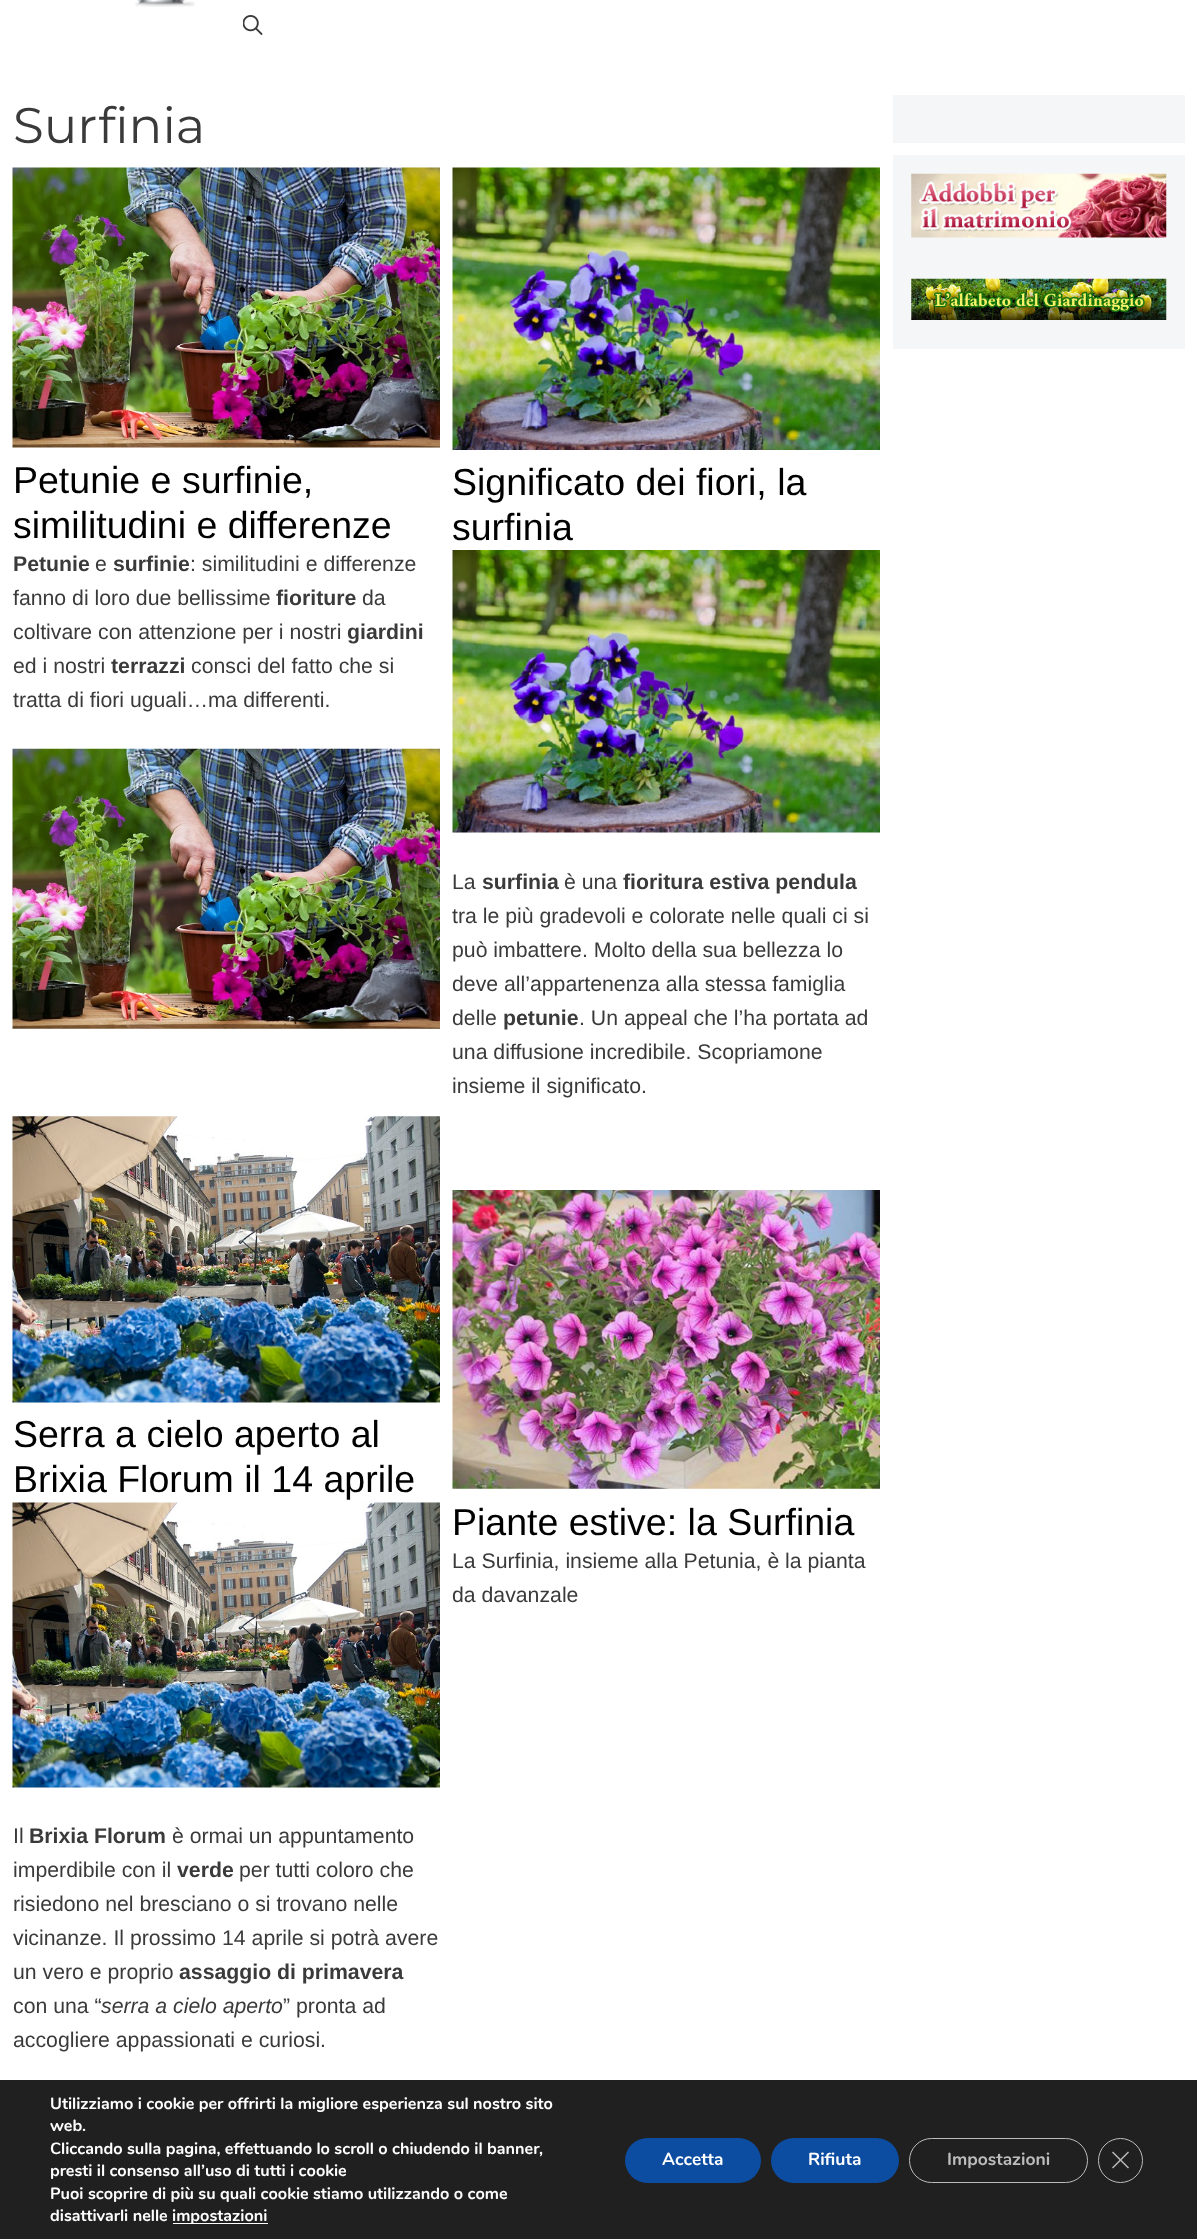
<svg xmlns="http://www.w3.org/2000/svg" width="1197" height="2239">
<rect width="100%" height="100%" fill="#fff"/>
<image x="135" y="0" width="60" height="7" href="media/1.png"/>
<image x="243" y="15" width="20" height="20" href="media/2.png"/>
<text x="13" y="143" style="font-family:Montserrat;font-size:50px;fill:#3a3a3a">Surfinia</text>
<image x="12" y="167" width="428" height="281" href="media/3.png"/>
<text x="13" y="493" style="font-family:Liberation Sans;font-size:37.5px;fill:#000">Petunie e surfinie,</text>
<text x="13" y="538" style="font-family:Liberation Sans;font-size:37.5px;fill:#000">similitudini e differenze</text>
<text x="13" y="571" style="font-family:Liberation Sans;font-size:21.25px;font-weight:bold;fill:#3a3a3a">Petunie</text>
<text x="95" y="571" style="font-family:Liberation Sans;font-size:21.25px;fill:#3a3a3a">e</text>
<text x="113" y="571" style="font-family:Liberation Sans;font-size:21.25px;font-weight:bold;fill:#3a3a3a">surfinie</text>
<text x="190" y="571" style="font-family:Liberation Sans;font-size:21.25px;fill:#3a3a3a">: similitudini e differenze</text>
<text x="13" y="605" style="font-family:Liberation Sans;font-size:21.25px;fill:#3a3a3a">fanno di loro due bellissime</text>
<text x="276" y="605" style="font-family:Liberation Sans;font-size:21.25px;font-weight:bold;fill:#3a3a3a">fioriture</text>
<text x="362" y="605" style="font-family:Liberation Sans;font-size:21.25px;fill:#3a3a3a">da</text>
<text x="13" y="639" style="font-family:Liberation Sans;font-size:21.25px;fill:#3a3a3a">coltivare con attenzione per i nostri</text>
<text x="347" y="639" style="font-family:Liberation Sans;font-size:21.25px;font-weight:bold;fill:#3a3a3a">giardini</text>
<text x="13" y="673" style="font-family:Liberation Sans;font-size:21.25px;fill:#3a3a3a">ed i nostri</text>
<text x="111" y="673" style="font-family:Liberation Sans;font-size:21.25px;font-weight:bold;fill:#3a3a3a">terrazzi</text>
<text x="191" y="673" style="font-family:Liberation Sans;font-size:21.25px;fill:#3a3a3a">consci del fatto che si</text>
<text x="13" y="707" style="font-family:Liberation Sans;font-size:21.25px;fill:#3a3a3a">tratta di fiori uguali…ma differenti.</text>
<image x="12" y="748" width="428" height="281" href="media/4.png"/>
<image x="452" y="167" width="428" height="283" href="media/5.png"/>
<text x="452" y="495" style="font-family:Liberation Sans;font-size:37.5px;fill:#000">Significato dei fiori, la</text>
<text x="452" y="540" style="font-family:Liberation Sans;font-size:37.5px;fill:#000">surfinia</text>
<image x="452" y="550" width="428" height="283" href="media/6.png"/>
<text x="452" y="889" style="font-family:Liberation Sans;font-size:21.25px;fill:#3a3a3a">La</text>
<text x="482" y="889" style="font-family:Liberation Sans;font-size:21.25px;font-weight:bold;fill:#3a3a3a">surfinia</text>
<text x="564" y="889" style="font-family:Liberation Sans;font-size:21.25px;fill:#3a3a3a">è una</text>
<text x="623" y="889" style="font-family:Liberation Sans;font-size:21.25px;font-weight:bold;fill:#3a3a3a">fioritura estiva pendula</text>
<text x="452" y="923" style="font-family:Liberation Sans;font-size:21.25px;fill:#3a3a3a">tra le più gradevoli e colorate nelle quali ci si</text>
<text x="452" y="957" style="font-family:Liberation Sans;font-size:21.25px;fill:#3a3a3a">può imbattere. Molto della sua bellezza lo</text>
<text x="452" y="991" style="font-family:Liberation Sans;font-size:21.25px;fill:#3a3a3a">deve all’appartenenza alla stessa famiglia</text>
<text x="452" y="1025" style="font-family:Liberation Sans;font-size:21.25px;fill:#3a3a3a">delle</text>
<text x="503" y="1025" style="font-family:Liberation Sans;font-size:21.25px;font-weight:bold;fill:#3a3a3a">petunie</text>
<text x="579" y="1025" style="font-family:Liberation Sans;font-size:21.25px;fill:#3a3a3a">. Un appeal che l’ha portata ad</text>
<text x="452" y="1059" style="font-family:Liberation Sans;font-size:21.25px;fill:#3a3a3a">una diffusione incredibile. Scopriamone</text>
<text x="452" y="1093" style="font-family:Liberation Sans;font-size:21.25px;fill:#3a3a3a">insieme il significato.</text>
<image x="12" y="1116" width="428" height="287" href="media/7.png"/>
<text x="13" y="1447" style="font-family:Liberation Sans;font-size:37.5px;fill:#000">Serra a cielo aperto al</text>
<text x="13" y="1492" style="font-family:Liberation Sans;font-size:37.5px;fill:#000">Brixia Florum il 14 aprile</text>
<image x="12" y="1502" width="428" height="286" href="media/8.png"/>
<text x="13" y="1843" style="font-family:Liberation Sans;font-size:21.25px;fill:#3a3a3a">Il</text>
<text x="29" y="1843" style="font-family:Liberation Sans;font-size:21.25px;font-weight:bold;fill:#3a3a3a">Brixia Florum</text>
<text x="172" y="1843" style="font-family:Liberation Sans;font-size:21.25px;fill:#3a3a3a">è ormai un appuntamento</text>
<text x="13" y="1877" style="font-family:Liberation Sans;font-size:21.25px;fill:#3a3a3a">imperdibile con il</text>
<text x="177" y="1877" style="font-family:Liberation Sans;font-size:21.25px;font-weight:bold;fill:#3a3a3a">verde</text>
<text x="239" y="1877" style="font-family:Liberation Sans;font-size:21.25px;fill:#3a3a3a">per tutti coloro che</text>
<text x="13" y="1911" style="font-family:Liberation Sans;font-size:21.25px;fill:#3a3a3a">risiedono nel bresciano o si trovano nelle</text>
<text x="13" y="1945" style="font-family:Liberation Sans;font-size:21.25px;fill:#3a3a3a">vicinanze. Il prossimo 14 aprile si potrà avere</text>
<text x="13" y="1979" style="font-family:Liberation Sans;font-size:21.25px;fill:#3a3a3a">un vero e proprio</text>
<text x="179" y="1979" style="font-family:Liberation Sans;font-size:21.25px;font-weight:bold;fill:#3a3a3a">assaggio di primavera</text>
<text x="13" y="2013" style="font-family:Liberation Sans;font-size:21.25px;fill:#3a3a3a">con una “</text>
<text x="101" y="2013" style="font-family:Liberation Sans;font-size:21.25px;font-style:italic;fill:#3a3a3a">serra a cielo aperto</text>
<text x="283" y="2013" style="font-family:Liberation Sans;font-size:21.25px;fill:#3a3a3a">” pronta ad</text>
<text x="13" y="2047" style="font-family:Liberation Sans;font-size:21.25px;fill:#3a3a3a">accogliere appassionati e curiosi.</text>
<image x="452" y="1190" width="428" height="299" href="media/9.png"/>
<text x="452" y="1535" style="font-family:Liberation Sans;font-size:37.5px;fill:#000">Piante estive: la Surfinia</text>
<text x="452" y="1568" style="font-family:Liberation Sans;font-size:21.25px;fill:#3a3a3a">La Surfinia, insieme alla Petunia, è la pianta</text>
<text x="452" y="1602" style="font-family:Liberation Sans;font-size:21.25px;fill:#3a3a3a">da davanzale</text>
<rect x="893" y="95" width="292" height="48" fill="#f4f6f7"/>
<rect x="893" y="155" width="292" height="194" fill="#f4f6f7"/>
<image x="911" y="173" width="256" height="65" href="media/10.png"/>
<image x="911" y="278" width="256" height="42" href="media/11.png"/>
<rect y="2080" width="1197" height="159" fill="#202020"/>
<text x="50" y="2109" style="font-family:Nunito;font-size:16.25px;font-weight:bold;fill:#fff">Utilizziamo i cookie per offrirti la migliore esperienza sul nostro sito</text>
<text x="50" y="2131" style="font-family:Nunito;font-size:16.25px;font-weight:bold;fill:#fff">web.</text>
<text x="50" y="2154" style="font-family:Nunito;font-size:16.25px;font-weight:bold;fill:#fff">Cliccando sulla pagina, effettuando lo scroll o chiudendo il banner,</text>
<text x="50" y="2176" style="font-family:Nunito;font-size:16.25px;font-weight:bold;fill:#fff">presti il consenso all’uso di tutti i cookie</text>
<text x="50" y="2199" style="font-family:Nunito;font-size:16.25px;font-weight:bold;fill:#fff">Puoi scoprire di più su quali cookie stiamo utilizzando o come</text>
<text x="50" y="2221" style="font-family:Nunito;font-size:16.25px;font-weight:bold;fill:#fff">disattivarli nelle</text>
<rect x="173" y="2223" width="95" height="1" fill="#fff"/>
<text x="172" y="2221" style="font-family:Nunito;font-size:16.25px;font-weight:bold;fill:#fff">impostazioni</text>
<rect x="625" y="2138" width="136" height="45" rx="22.5" fill="#0c4da2"/>
<text x="662" y="2165" style="font-family:Nunito;font-size:17.5px;font-weight:bold;fill:#fff">Accetta</text>
<rect x="771" y="2138" width="128" height="45" rx="22.5" fill="#0c4da2"/>
<text x="808" y="2165" style="font-family:Nunito;font-size:17.5px;font-weight:bold;fill:#fff">Rifiuta</text>
<rect x="909.5" y="2138.5" width="178" height="44" rx="22" fill="none" stroke="#bcbcbc"/>
<text x="947" y="2165" style="font-family:Nunito;font-size:17.5px;font-weight:bold;fill:#bcbcbc">Impostazioni</text>
<circle cx="1120.5" cy="2160.5" r="22" fill="none" stroke="#bcbcbc"/>
<path d="M1128 2151.5l1 1l-16 16l-1-1z" fill="#bcbcbc"/>
<path d="M1112 2152.5l1-1l16 16l-1 1z" fill="#bcbcbc"/>
</svg>
